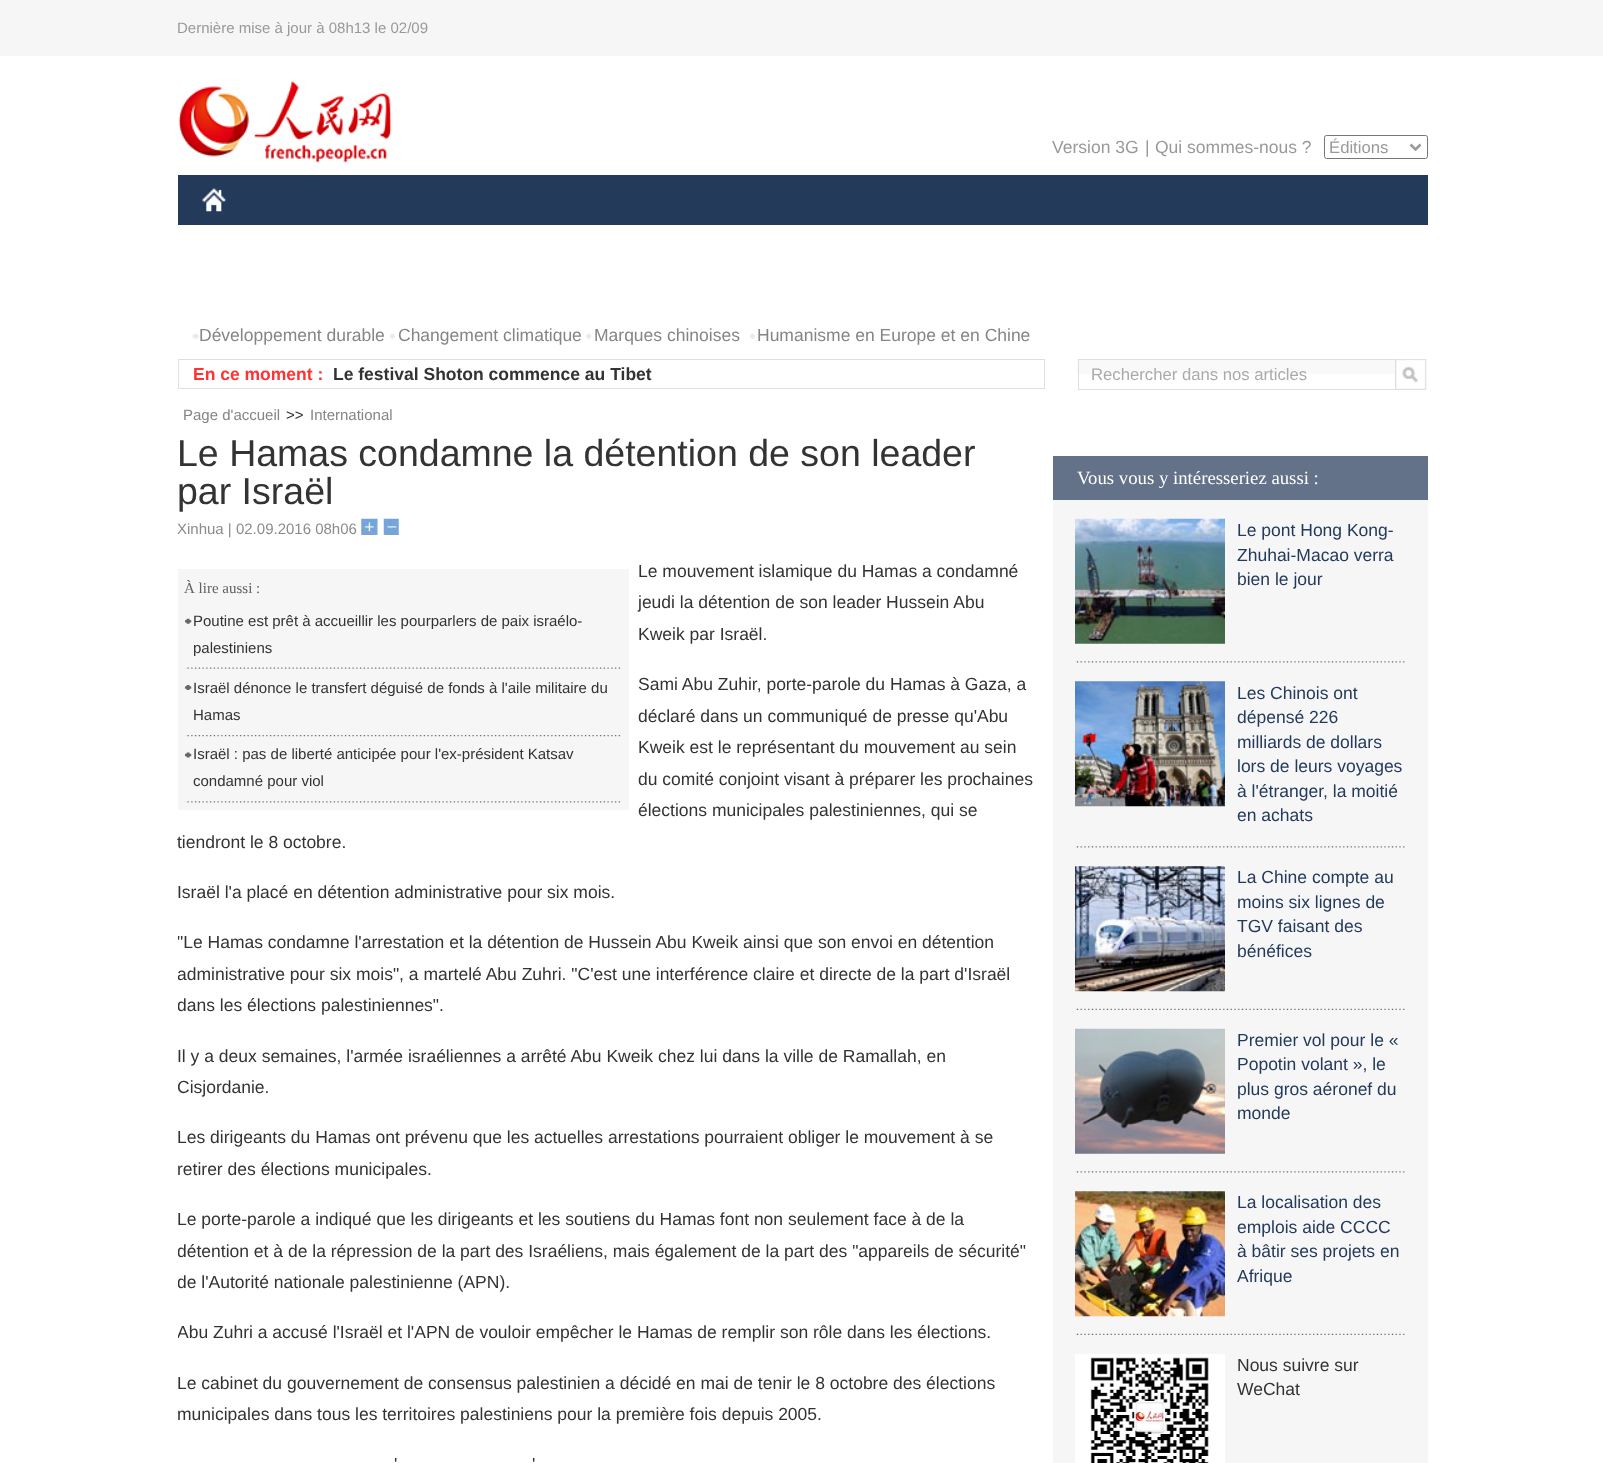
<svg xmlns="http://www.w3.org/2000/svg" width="1603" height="1463">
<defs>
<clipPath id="clip1"><rect x="178" y="435" width="1250" height="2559"/></clipPath>
</defs>
<rect width="100%" height="100%" fill="#fff"/>
<rect width="1603" height="56" fill="#f6f6f6"/>
<text x="177" y="33" style="font-family:Liberation Sans;font-size:15px;fill:#999">Dernière mise à jour à 08h13 le 02/09</text>
<image x="178" y="81" width="214" height="82" href="media/1.png"/>
<text x="1052" y="153" style="font-family:Liberation Sans;font-size:17.5px;fill:#999">Version 3G</text>
<text x="1145" y="153" style="font-family:Liberation Sans;font-size:17.5px;fill:#999">|</text>
<text x="1155" y="153" style="font-family:Liberation Sans;font-size:17.5px;fill:#999">Qui sommes-nous ?</text>
<rect x="1324.5" y="135.5" width="103" height="23" rx="2" fill="none" stroke="#767676"/>
<path d="M1410.5 144.5l5 5l5-5" fill="none" stroke="#999" stroke-width="2.5"/>
<text x="1329" y="153" style="font-family:Liberation Sans;font-size:16.7px;fill:#999">Éditions</text>
<rect x="178" y="175" width="1250" height="50" fill="#243a5b"/>
<image x="202" y="187" width="25" height="25" href="media/2.png"/>
<image x="192" y="333" width="7" height="6" href="media/3.png"/>
<text x="199" y="341" style="font-family:Liberation Sans;font-size:17.5px;fill:#858585">Développement durable</text>
<image x="390" y="333" width="5" height="6" href="media/4.png"/>
<text x="398" y="341" style="font-family:Liberation Sans;font-size:17.5px;fill:#858585">Changement climatique</text>
<image x="586" y="333" width="6" height="6" href="media/5.png"/>
<text x="594" y="341" style="font-family:Liberation Sans;font-size:17.5px;fill:#858585">Marques chinoises</text>
<image x="750" y="333" width="5" height="6" href="media/4.png"/>
<text x="757" y="341" style="font-family:Liberation Sans;font-size:17.5px;fill:#858585">Humanisme en Europe et en Chine</text>
<rect x="178.5" y="359.5" width="866" height="29" fill="none" stroke="#dfdfdf"/>
<text x="193" y="380" style="font-family:Liberation Sans;font-size:17.5px;font-weight:bold;fill:#f33">En ce moment :</text>
<text x="333" y="380" style="font-family:Liberation Sans;font-size:17.5px;font-weight:bold;fill:#333">Le festival Shoton commence au Tibet</text>
<rect x="1077" y="360" width="318" height="14" fill="#f9f9f9"/>
<rect x="1078" y="359" width="317" height="1" fill="#dfdfdf"/>
<rect x="1078" y="389" width="317" height="1" fill="#dfdfdf"/>
<rect x="1078" y="359" width="1" height="31" fill="#dfdfdf"/>
<text x="1091" y="380" style="font-family:Liberation Sans;font-size:16.7px;fill:#aaa">Rechercher dans nos articles</text>
<image x="1395" y="359" width="32" height="31" href="media/6.png"/>
<text x="183" y="420" style="font-family:Liberation Sans;font-size:15px;fill:#858585">Page d'accueil</text>
<text x="286" y="420" style="font-family:Liberation Sans;font-size:15px;fill:#333">&gt;&gt;</text>
<text x="310" y="420" style="font-family:Liberation Sans;font-size:15px;fill:#858585">International</text>
<text x="177" y="466" style="font-family:Liberation Sans;font-size:37.5px;fill:#333">Le Hamas condamne la détention de son leader</text>
<text x="177" y="504" style="font-family:Liberation Sans;font-size:37.5px;fill:#333">par Israël</text>
<text x="177" y="534" style="font-family:Liberation Sans;font-size:15px;fill:#8b8b8b">Xinhua | 02.09.2016 08h06</text>
<image x="361" y="518" width="17" height="17" href="media/7.png"/>
<image x="383" y="518" width="16" height="17" href="media/8.png"/>
<text x="638" y="577" style="font-family:Liberation Sans;font-size:17.5px;fill:#333">Le mouvement islamique du Hamas a condamné</text>
<text x="638" y="608" style="font-family:Liberation Sans;font-size:17.5px;fill:#333">jeudi la détention de son leader Hussein Abu</text>
<text x="638" y="640" style="font-family:Liberation Sans;font-size:17.5px;fill:#333">Kweik par Israël.</text>
<text x="638" y="690" style="font-family:Liberation Sans;font-size:17.5px;fill:#333">Sami Abu Zuhir, porte-parole du Hamas à Gaza, a</text>
<text x="638" y="722" style="font-family:Liberation Sans;font-size:17.5px;fill:#333">déclaré dans un communiqué de presse qu'Abu</text>
<text x="638" y="753" style="font-family:Liberation Sans;font-size:17.5px;fill:#333">Kweik est le représentant du mouvement au sein</text>
<text x="638" y="785" style="font-family:Liberation Sans;font-size:17.5px;fill:#333">du comité conjoint visant à préparer les prochaines</text>
<text x="638" y="816" style="font-family:Liberation Sans;font-size:17.5px;fill:#333">élections municipales palestiniennes, qui se</text>
<text x="177" y="848" style="font-family:Liberation Sans;font-size:17.5px;fill:#333">tiendront le 8 octobre.</text>
<text x="177" y="898" style="font-family:Liberation Sans;font-size:17.5px;fill:#333">Israël l'a placé en détention administrative pour six mois.</text>
<g clip-path="url(#clip1)">
<text x="177" y="948" style="font-family:Liberation Sans;font-size:17.5px;fill:#333">"Le Hamas condamne l'arrestation et la détention de Hussein Abu Kweik ainsi que son envoi en détention</text>
<text x="177" y="980" style="font-family:Liberation Sans;font-size:17.5px;fill:#333">administrative pour six mois", a martelé Abu Zuhri. "C'est une interférence claire et directe de la part d'Israël</text>
<text x="177" y="1011" style="font-family:Liberation Sans;font-size:17.5px;fill:#333">dans les élections palestiniennes".</text>
</g>
<text x="177" y="1062" style="font-family:Liberation Sans;font-size:17.5px;fill:#333">Il y a deux semaines, l'armée israéliennes a arrêté Abu Kweik chez lui dans la ville de Ramallah, en</text>
<g clip-path="url(#clip1)">
<text x="177" y="1093" style="font-family:Liberation Sans;font-size:17.5px;fill:#333">Cisjordanie.</text>
</g>
<text x="177" y="1143" style="font-family:Liberation Sans;font-size:17.5px;fill:#333">Les dirigeants du Hamas ont prévenu que les actuelles arrestations pourraient obliger le mouvement à se</text>
<text x="177" y="1175" style="font-family:Liberation Sans;font-size:17.5px;fill:#333">retirer des élections municipales.</text>
<text x="177" y="1225" style="font-family:Liberation Sans;font-size:17.5px;fill:#333">Le porte-parole a indiqué que les dirigeants et les soutiens du Hamas font non seulement face à de la</text>
<g clip-path="url(#clip1)">
<text x="177" y="1257" style="font-family:Liberation Sans;font-size:17.5px;fill:#333">détention et à de la répression de la part des Israéliens, mais également de la part des "appareils de sécurité"</text>
<text x="177" y="1288" style="font-family:Liberation Sans;font-size:17.5px;fill:#333">de l'Autorité nationale palestinienne (APN).</text>
<text x="177" y="1338" style="font-family:Liberation Sans;font-size:17.5px;fill:#333">Abu Zuhri a accusé l'Israël et l'APN de vouloir empêcher le Hamas de remplir son rôle dans les élections.</text>
</g>
<text x="177" y="1389" style="font-family:Liberation Sans;font-size:17.5px;fill:#333">Le cabinet du gouvernement de consensus palestinien a décidé en mai de tenir le 8 octobre des élections</text>
<text x="177" y="1420" style="font-family:Liberation Sans;font-size:17.5px;fill:#333">municipales dans tous les territoires palestiniens pour la première fois depuis 2005.</text>
<text x="394" y="1470" style="font-family:Liberation Sans;font-size:17.5px;fill:#333">'</text>
<text x="532" y="1470" style="font-family:Liberation Sans;font-size:17.5px;fill:#333">'</text>
<rect x="178" y="569" width="451" height="241" fill="#f6f6f6"/>
<text x="184" y="593" style="font-family:Liberation Serif;font-size:15px;fill:#616161">À lire aussi :</text>
<image x="185" y="667" width="436" height="2" href="media/9.png"/>
<image x="185" y="618" width="7" height="6" href="media/10.png"/>
<text x="193" y="626" style="font-family:Liberation Sans;font-size:15px;fill:#333">Poutine est prêt à accueillir les pourparlers de paix israélo-</text>
<text x="193" y="653" style="font-family:Liberation Sans;font-size:15px;fill:#333">palestiniens</text>
<image x="185" y="735" width="436" height="2" href="media/11.png"/>
<image x="185" y="685" width="7" height="5" href="media/12.png"/>
<text x="193" y="693" style="font-family:Liberation Sans;font-size:15px;fill:#333">Israël dénonce le transfert déguisé de fonds à l'aile militaire du</text>
<text x="193" y="720" style="font-family:Liberation Sans;font-size:15px;fill:#333">Hamas</text>
<image x="185" y="801" width="436" height="2" href="media/13.png"/>
<image x="185" y="752" width="7" height="6" href="media/14.png"/>
<text x="193" y="759" style="font-family:Liberation Sans;font-size:15px;fill:#333">Israël : pas de liberté anticipée pour l'ex-président Katsav</text>
<text x="193" y="786" style="font-family:Liberation Sans;font-size:15px;fill:#333">condamné pour viol</text>
<rect x="1053" y="500" width="375" height="963" fill="#f6f6f6"/>
<rect x="1053" y="456" width="375" height="44" fill="#637289"/>
<text x="1077" y="484" style="font-family:Liberation Serif;font-size:18.75px;fill:#fff">Vous vous y intéresseriez aussi :</text>
<image x="1076" y="661" width="329" height="2" href="media/15.png"/>
<image x="1075" y="518" width="150" height="126" href="media/16.png"/>
<text x="1237" y="536" style="font-family:Liberation Sans;font-size:17.5px;fill:#243a5b">Le pont Hong Kong-</text>
<text x="1237" y="561" style="font-family:Liberation Sans;font-size:17.5px;fill:#243a5b">Zhuhai-Macao verra</text>
<text x="1237" y="585" style="font-family:Liberation Sans;font-size:17.5px;fill:#243a5b">bien le jour</text>
<image x="1076" y="846" width="329" height="2" href="media/15.png"/>
<image x="1075" y="681" width="150" height="126" href="media/17.png"/>
<text x="1237" y="699" style="font-family:Liberation Sans;font-size:17.5px;fill:#243a5b">Les Chinois ont</text>
<text x="1237" y="723" style="font-family:Liberation Sans;font-size:17.5px;fill:#243a5b">dépensé 226</text>
<text x="1237" y="748" style="font-family:Liberation Sans;font-size:17.5px;fill:#243a5b">milliards de dollars</text>
<text x="1237" y="772" style="font-family:Liberation Sans;font-size:17.5px;fill:#243a5b">lors de leurs voyages</text>
<text x="1237" y="797" style="font-family:Liberation Sans;font-size:17.5px;fill:#243a5b">à l'étranger, la moitié</text>
<text x="1237" y="821" style="font-family:Liberation Sans;font-size:17.5px;fill:#243a5b">en achats</text>
<image x="1076" y="1008" width="329" height="2" href="media/18.png"/>
<image x="1075" y="866" width="150" height="126" href="media/19.png"/>
<text x="1237" y="883" style="font-family:Liberation Sans;font-size:17.5px;fill:#243a5b">La Chine compte au</text>
<text x="1237" y="908" style="font-family:Liberation Sans;font-size:17.5px;fill:#243a5b">moins six lignes de</text>
<text x="1237" y="932" style="font-family:Liberation Sans;font-size:17.5px;fill:#243a5b">TGV faisant des</text>
<text x="1237" y="957" style="font-family:Liberation Sans;font-size:17.5px;fill:#243a5b">bénéfices</text>
<image x="1076" y="1171" width="329" height="2" href="media/15.png"/>
<image x="1075" y="1028" width="150" height="126" href="media/20.png"/>
<text x="1237" y="1046" style="font-family:Liberation Sans;font-size:17.5px;fill:#243a5b">Premier vol pour le «</text>
<text x="1237" y="1070" style="font-family:Liberation Sans;font-size:17.5px;fill:#243a5b">Popotin volant », le</text>
<text x="1237" y="1095" style="font-family:Liberation Sans;font-size:17.5px;fill:#243a5b">plus gros aéronef du</text>
<text x="1237" y="1119" style="font-family:Liberation Sans;font-size:17.5px;fill:#243a5b">monde</text>
<image x="1076" y="1333" width="329" height="2" href="media/18.png"/>
<image x="1075" y="1191" width="150" height="126" href="media/21.png"/>
<text x="1237" y="1208" style="font-family:Liberation Sans;font-size:17.5px;fill:#243a5b">La localisation des</text>
<text x="1237" y="1233" style="font-family:Liberation Sans;font-size:17.5px;fill:#243a5b">emplois aide CCCC</text>
<text x="1237" y="1257" style="font-family:Liberation Sans;font-size:17.5px;fill:#243a5b">à bâtir ses projets en</text>
<text x="1237" y="1282" style="font-family:Liberation Sans;font-size:17.5px;fill:#243a5b">Afrique</text>
<image x="1075" y="1354" width="150" height="109" href="media/22.png"/>
<text x="1237" y="1371" style="font-family:Liberation Sans;font-size:17.5px;fill:#333">Nous suivre sur</text>
<text x="1237" y="1395" style="font-family:Liberation Sans;font-size:17.5px;fill:#333">WeChat</text>
</svg>
